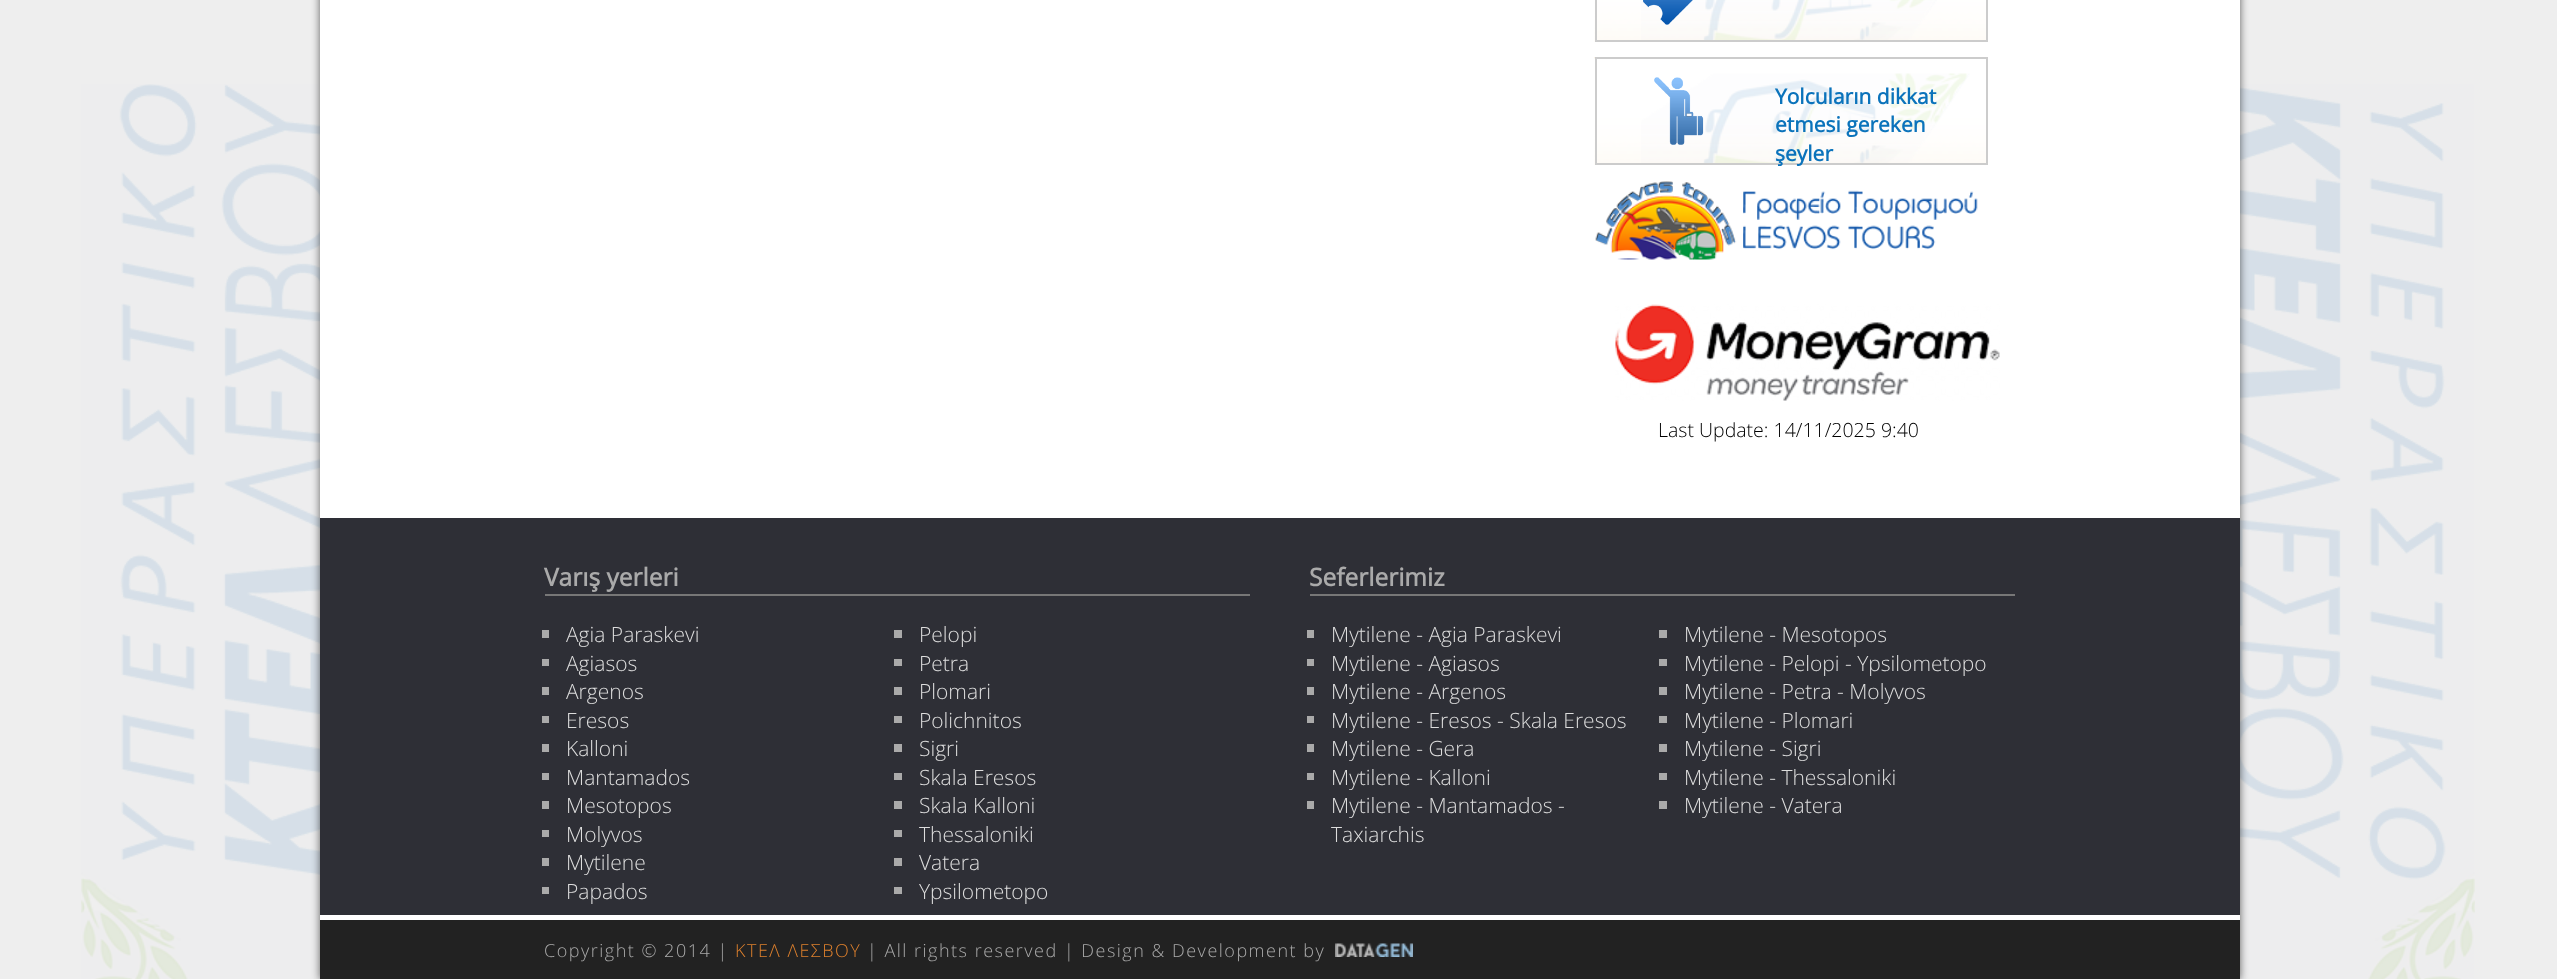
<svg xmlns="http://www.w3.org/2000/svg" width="2557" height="979">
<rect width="100%" height="100%" fill="#eee"/>
<image x="81" y="84" width="2394" height="895" href="media/1.png"/>
<rect x="320" y="-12" width="1920" height="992" fill="#00000099" filter="blur(4px)"/>
<rect x="320" width="1920" height="920" fill="#fff"/>
<image x="1594" y="0" width="392" height="42" href="media/2.png"/>
<rect x="1596" y="-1" width="391" height="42" fill="none" stroke="#ccc" stroke-width="2"/>
<image x="1643" y="0" width="50" height="25" href="media/3.png"/>
<image x="1594" y="57" width="392" height="108" href="media/4.png"/>
<rect x="1596" y="58" width="391" height="106" fill="none" stroke="#ccc" stroke-width="2"/>
<image x="1654" y="77" width="50" height="68" href="media/5.png"/>
<text x="1775" y="104" style="font-family:Open Sans;font-size:21px;font-weight:bold;fill:#0b73bb">Yolcuların dikkat</text>
<text x="1775" y="132" style="font-family:Open Sans;font-size:21px;font-weight:bold;fill:#0b73bb">etmesi gereken</text>
<text x="1775" y="161" style="font-family:Open Sans;font-size:21px;font-weight:bold;fill:#0b73bb">şeyler</text>
<image x="1595" y="181" width="383" height="79" href="media/6.png"/>
<image x="1615" y="304" width="385" height="97" href="media/7.png"/>
<text x="1658" y="437" style="font-family:Open Sans;font-size:19.5px;font-weight:300;fill:#000">Last Update: 14/11/2025 9:40</text>
<rect x="320" y="518" width="1920" height="397" fill="#2e2f36"/>
<rect x="545" y="594" width="705" height="2" fill="#777"/>
<text x="544" y="586" style="font-family:Open Sans;font-size:24.5px;font-weight:bold;fill:#aaa">Varış yerleri</text>
<rect x="1310" y="594" width="705" height="2" fill="#777"/>
<text x="1309" y="586" style="font-family:Open Sans;font-size:24.5px;font-weight:bold;fill:#aaa">Seferlerimiz</text>
<rect x="542" y="630" width="7" height="8" fill="#aaa"/>
<text x="566" y="642" style="font-family:Open Sans;font-size:21px;font-weight:300;fill:#ddd">Agia Paraskevi</text>
<rect x="542" y="659" width="7" height="7" fill="#aaa"/>
<text x="566" y="671" style="font-family:Open Sans;font-size:21px;font-weight:300;fill:#ddd">Agiasos</text>
<rect x="542" y="687" width="7" height="8" fill="#aaa"/>
<text x="566" y="699" style="font-family:Open Sans;font-size:21px;font-weight:300;fill:#ddd">Argenos</text>
<rect x="542" y="716" width="7" height="7" fill="#aaa"/>
<text x="566" y="728" style="font-family:Open Sans;font-size:21px;font-weight:300;fill:#ddd">Eresos</text>
<rect x="542" y="744" width="7" height="8" fill="#aaa"/>
<text x="566" y="756" style="font-family:Open Sans;font-size:21px;font-weight:300;fill:#ddd">Kalloni</text>
<rect x="542" y="773" width="7" height="7" fill="#aaa"/>
<text x="566" y="785" style="font-family:Open Sans;font-size:21px;font-weight:300;fill:#ddd">Mantamados</text>
<rect x="542" y="801" width="7" height="8" fill="#aaa"/>
<text x="566" y="813" style="font-family:Open Sans;font-size:21px;font-weight:300;fill:#ddd">Mesotopos</text>
<rect x="542" y="830" width="7" height="7" fill="#aaa"/>
<text x="566" y="842" style="font-family:Open Sans;font-size:21px;font-weight:300;fill:#ddd">Molyvos</text>
<rect x="542" y="858" width="7" height="8" fill="#aaa"/>
<text x="566" y="870" style="font-family:Open Sans;font-size:21px;font-weight:300;fill:#ddd">Mytilene</text>
<rect x="542" y="887" width="7" height="7" fill="#aaa"/>
<text x="566" y="899" style="font-family:Open Sans;font-size:21px;font-weight:300;fill:#ddd">Papados</text>
<rect x="894" y="630" width="8" height="8" fill="#aaa"/>
<text x="919" y="642" style="font-family:Open Sans;font-size:21px;font-weight:300;fill:#ddd">Pelopi</text>
<rect x="894" y="659" width="8" height="7" fill="#aaa"/>
<text x="919" y="671" style="font-family:Open Sans;font-size:21px;font-weight:300;fill:#ddd">Petra</text>
<rect x="894" y="687" width="8" height="8" fill="#aaa"/>
<text x="919" y="699" style="font-family:Open Sans;font-size:21px;font-weight:300;fill:#ddd">Plomari</text>
<rect x="894" y="716" width="8" height="7" fill="#aaa"/>
<text x="919" y="728" style="font-family:Open Sans;font-size:21px;font-weight:300;fill:#ddd">Polichnitos</text>
<rect x="894" y="744" width="8" height="8" fill="#aaa"/>
<text x="919" y="756" style="font-family:Open Sans;font-size:21px;font-weight:300;fill:#ddd">Sigri</text>
<rect x="894" y="773" width="8" height="7" fill="#aaa"/>
<text x="919" y="785" style="font-family:Open Sans;font-size:21px;font-weight:300;fill:#ddd">Skala Eresos</text>
<rect x="894" y="801" width="8" height="8" fill="#aaa"/>
<text x="919" y="813" style="font-family:Open Sans;font-size:21px;font-weight:300;fill:#ddd">Skala Kalloni</text>
<rect x="894" y="830" width="8" height="7" fill="#aaa"/>
<text x="919" y="842" style="font-family:Open Sans;font-size:21px;font-weight:300;fill:#ddd">Thessaloniki</text>
<rect x="894" y="858" width="8" height="8" fill="#aaa"/>
<text x="919" y="870" style="font-family:Open Sans;font-size:21px;font-weight:300;fill:#ddd">Vatera</text>
<rect x="894" y="887" width="8" height="7" fill="#aaa"/>
<text x="919" y="899" style="font-family:Open Sans;font-size:21px;font-weight:300;fill:#ddd">Ypsilometopo</text>
<rect x="1307" y="630" width="7" height="8" fill="#aaa"/>
<text x="1331" y="642" style="font-family:Open Sans;font-size:21px;font-weight:300;fill:#ddd">Mytilene - Agia Paraskevi</text>
<rect x="1307" y="659" width="7" height="7" fill="#aaa"/>
<text x="1331" y="671" style="font-family:Open Sans;font-size:21px;font-weight:300;fill:#ddd">Mytilene - Agiasos</text>
<rect x="1307" y="687" width="7" height="8" fill="#aaa"/>
<text x="1331" y="699" style="font-family:Open Sans;font-size:21px;font-weight:300;fill:#ddd">Mytilene - Argenos</text>
<rect x="1307" y="716" width="7" height="7" fill="#aaa"/>
<text x="1331" y="728" style="font-family:Open Sans;font-size:21px;font-weight:300;fill:#ddd">Mytilene - Eresos - Skala Eresos</text>
<rect x="1307" y="744" width="7" height="8" fill="#aaa"/>
<text x="1331" y="756" style="font-family:Open Sans;font-size:21px;font-weight:300;fill:#ddd">Mytilene - Gera</text>
<rect x="1307" y="773" width="7" height="7" fill="#aaa"/>
<text x="1331" y="785" style="font-family:Open Sans;font-size:21px;font-weight:300;fill:#ddd">Mytilene - Kalloni</text>
<rect x="1307" y="801" width="7" height="8" fill="#aaa"/>
<text x="1331" y="813" style="font-family:Open Sans;font-size:21px;font-weight:300;fill:#ddd">Mytilene - Mantamados -</text>
<text x="1331" y="842" style="font-family:Open Sans;font-size:21px;font-weight:300;fill:#ddd">Taxiarchis</text>
<rect x="1659" y="630" width="8" height="8" fill="#aaa"/>
<text x="1684" y="642" style="font-family:Open Sans;font-size:21px;font-weight:300;fill:#ddd">Mytilene - Mesotopos</text>
<rect x="1659" y="659" width="8" height="7" fill="#aaa"/>
<text x="1684" y="671" style="font-family:Open Sans;font-size:21px;font-weight:300;fill:#ddd">Mytilene - Pelopi - Ypsilometopo</text>
<rect x="1659" y="687" width="8" height="8" fill="#aaa"/>
<text x="1684" y="699" style="font-family:Open Sans;font-size:21px;font-weight:300;fill:#ddd">Mytilene - Petra - Molyvos</text>
<rect x="1659" y="716" width="8" height="7" fill="#aaa"/>
<text x="1684" y="728" style="font-family:Open Sans;font-size:21px;font-weight:300;fill:#ddd">Mytilene - Plomari</text>
<rect x="1659" y="744" width="8" height="8" fill="#aaa"/>
<text x="1684" y="756" style="font-family:Open Sans;font-size:21px;font-weight:300;fill:#ddd">Mytilene - Sigri</text>
<rect x="1659" y="773" width="8" height="7" fill="#aaa"/>
<text x="1684" y="785" style="font-family:Open Sans;font-size:21px;font-weight:300;fill:#ddd">Mytilene - Thessaloniki</text>
<rect x="1659" y="801" width="8" height="8" fill="#aaa"/>
<text x="1684" y="813" style="font-family:Open Sans;font-size:21px;font-weight:300;fill:#ddd">Mytilene - Vatera</text>
<rect x="320" y="920" width="1920" height="59" fill="#222"/>
<text x="544" y="957" style="font-family:Open Sans;font-size:18px;font-weight:300;letter-spacing:1.5px;fill:#aaa">Copyright © 2014 |</text>
<text x="735" y="957" style="font-family:Open Sans;font-size:18px;font-weight:300;letter-spacing:1.5px;fill:#de802d">ΚΤΕΛ ΛΕΣΒΟΥ</text>
<text x="867" y="957" style="font-family:Open Sans;font-size:18px;font-weight:300;letter-spacing:1.5px;fill:#aaa">| All rights reserved | Design &amp; Development by</text>
<image x="1335" y="943" width="78" height="14" href="media/8.png"/>
</svg>
